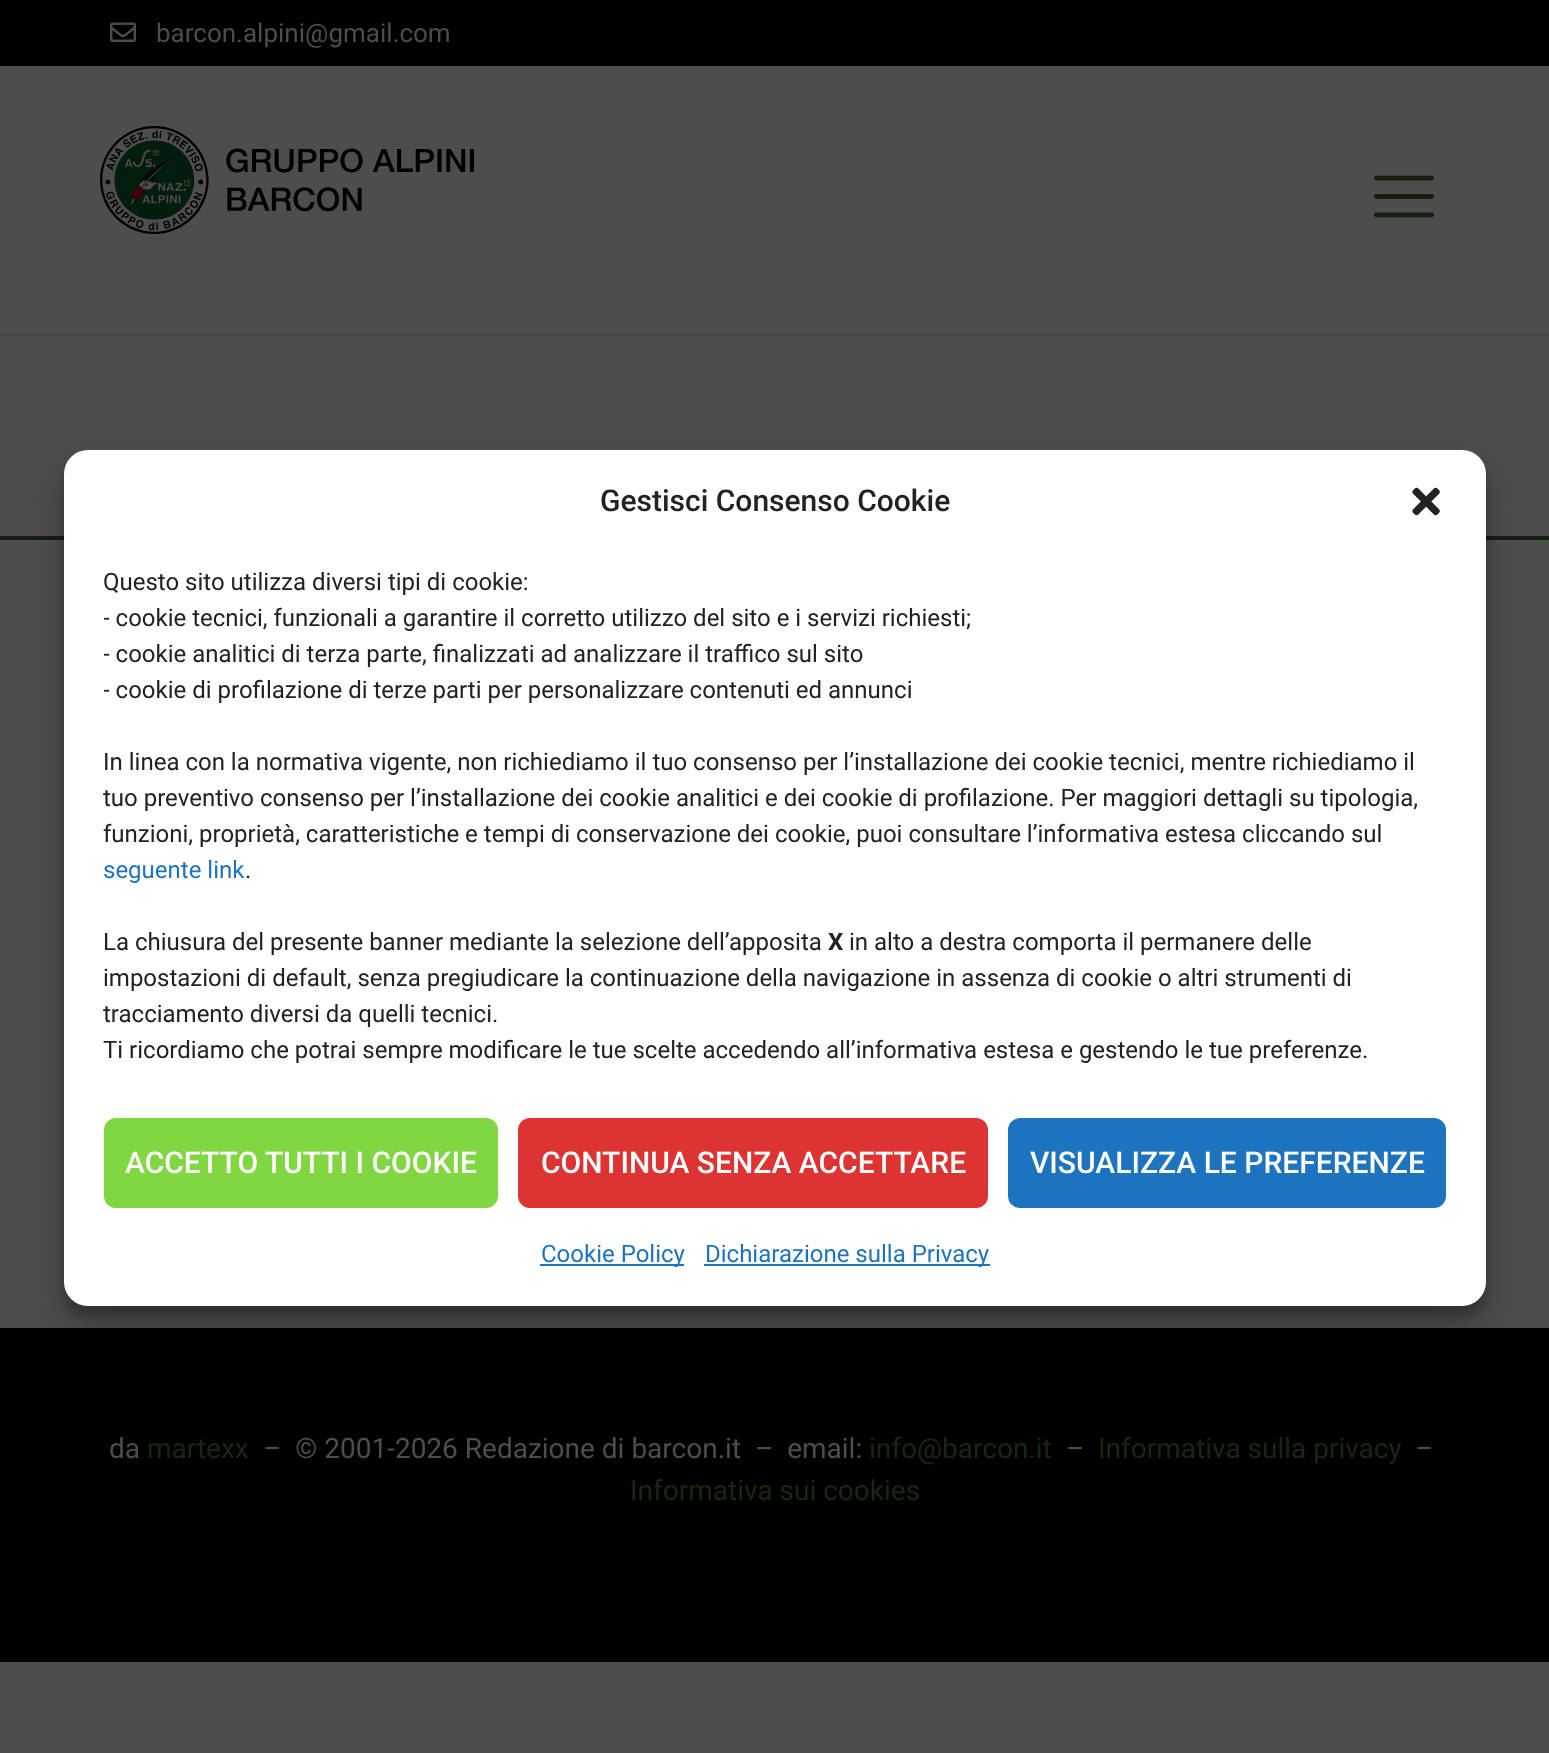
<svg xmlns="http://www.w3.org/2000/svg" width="1549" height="1753">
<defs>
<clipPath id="clip1"><rect x="104" y="564" width="1342" height="514"/></clipPath>
</defs>
<rect width="100%" height="100%" fill="#4d4d4d"/>
<rect width="1549" height="66" fill="#000"/>
<image x="110" y="22" width="26" height="20" href="media/1.png"/>
<text x="156" y="42" style="font-family:Roboto;font-size:26px;fill:#4d4d4d">barcon.alpini@gmail.com</text>
<rect y="334" width="1549" height="2" fill="#454545"/>
<image x="100" y="126" width="374" height="108" href="media/2.png"/>
<image x="1374" y="175" width="60" height="43" href="media/3.png"/>
<rect y="536" width="1549" height="4" fill="#142010"/>
<rect y="1328" width="1549" height="334" fill="#000"/>
<rect x="64" y="462" width="1422" height="856" rx="24" fill="#0000003b" filter="blur(6px)"/>
<rect x="64" y="470" width="1422" height="856" rx="24" fill="#00000030" filter="blur(20px)"/>
<rect x="64" y="450" width="1422" height="856" rx="24" fill="#fff"/>
<text x="600" y="511" style="font-family:Roboto;font-size:30px;font-weight:500;fill:#222">Gestisci Consenso Cookie</text>
<image x="1412" y="487" width="28" height="29" href="media/4.png"/>
<text x="103" y="590" style="font-family:Roboto;font-size:24px;fill:#222">Questo sito utilizza diversi tipi di cookie:</text>
<g clip-path="url(#clip1)">
<text x="103" y="626" style="font-family:Roboto;font-size:24px;fill:#222">- cookie tecnici, funzionali a garantire il corretto utilizzo del sito e i servizi richiesti;</text>
<text x="103" y="662" style="font-family:Roboto;font-size:24px;fill:#222">- cookie analitici di terza parte, finalizzati ad analizzare il traffico sul sito</text>
<text x="103" y="698" style="font-family:Roboto;font-size:24px;fill:#222">- cookie di profilazione di terze parti per personalizzare contenuti ed annunci</text>
</g>
<text x="103" y="770" style="font-family:Roboto;font-size:24px;fill:#222">In linea con la normativa vigente, non richiediamo il tuo consenso per l’installazione dei cookie tecnici, mentre richiediamo il</text>
<text x="103" y="806" style="font-family:Roboto;font-size:24px;fill:#222">tuo preventivo consenso per l’installazione dei cookie analitici e dei cookie di profilazione. Per maggiori dettagli su tipologia,</text>
<text x="103" y="842" style="font-family:Roboto;font-size:24px;fill:#222">funzioni, proprietà, caratteristiche e tempi di conservazione dei cookie, puoi consultare l’informativa estesa cliccando sul</text>
<text x="103" y="878" style="font-family:Roboto;font-size:24px;fill:#1e73be">seguente link</text>
<text x="245" y="878" style="font-family:Roboto;font-size:24px;fill:#222">.</text>
<text x="103" y="950" style="font-family:Roboto;font-size:24px;fill:#222">La chiusura del presente banner mediante la selezione dell’apposita</text>
<text x="828" y="950" style="font-family:Roboto;font-size:24px;font-weight:bold;fill:#222">X</text>
<text x="849" y="950" style="font-family:Roboto;font-size:24px;fill:#222">in alto a destra comporta il permanere delle</text>
<text x="103" y="986" style="font-family:Roboto;font-size:24px;fill:#222">impostazioni di default, senza pregiudicare la continuazione della navigazione in assenza di cookie o altri strumenti di</text>
<text x="103" y="1022" style="font-family:Roboto;font-size:24px;fill:#222">tracciamento diversi da quelli tecnici.</text>
<text x="103" y="1058" style="font-family:Roboto;font-size:24px;fill:#222">Ti ricordiamo che potrai sempre modificare le tue scelte accedendo all’informativa estesa e gestendo le tue preferenze.</text>
<rect x="105" y="1119" width="392" height="88" rx="11" fill="#81d742" stroke="#81d742" stroke-width="2"/>
<text x="125" y="1173" style="font-family:Roboto;font-size:30px;font-weight:500;fill:#fff">ACCETTO TUTTI I COOKIE</text>
<rect x="519" y="1119" width="468" height="88" rx="11" fill="#d33" stroke="#d33" stroke-width="2"/>
<text x="541" y="1173" style="font-family:Roboto;font-size:30px;font-weight:500;fill:#fff">CONTINUA SENZA ACCETTARE</text>
<rect x="1009" y="1119" width="436" height="88" rx="11" fill="#1e73be" stroke="#1e73be" stroke-width="2"/>
<text x="1030" y="1173" style="font-family:Roboto;font-size:30px;font-weight:500;fill:#fff">VISUALIZZA LE PREFERENZE</text>
<rect x="540" y="1264" width="144" height="2" fill="#1e73be"/>
<text x="541" y="1262" style="font-family:Roboto;font-size:24px;fill:#1e73be">Cookie Policy</text>
<rect x="704" y="1264" width="286" height="2" fill="#1e73be"/>
<text x="705" y="1262" style="font-family:Roboto;font-size:24px;fill:#1e73be">Dichiarazione sulla Privacy</text>
<text x="109" y="1458" style="font-family:Roboto;font-size:28px;fill:#4d4d4d">da</text>
<text x="147" y="1458" style="font-family:Roboto;font-size:28px;fill:#182714">martexx</text>
<text x="263" y="1458" style="font-family:Roboto;font-size:28px;fill:#4d4d4d" xml:space="preserve">–  © 2001-2026 Redazione di barcon.it  –  email:</text>
<text x="869" y="1458" style="font-family:Roboto;font-size:28px;fill:#182714">info@barcon.it</text>
<text x="1066" y="1458" style="font-family:Roboto;font-size:28px;fill:#4d4d4d">–</text>
<text x="1098" y="1458" style="font-family:Roboto;font-size:28px;fill:#182714">Informativa sulla privacy</text>
<text x="1415" y="1458" style="font-family:Roboto;font-size:28px;fill:#4d4d4d">–</text>
<text x="630" y="1500" style="font-family:Roboto;font-size:28px;fill:#182714">Informativa sui cookies</text>
</svg>
